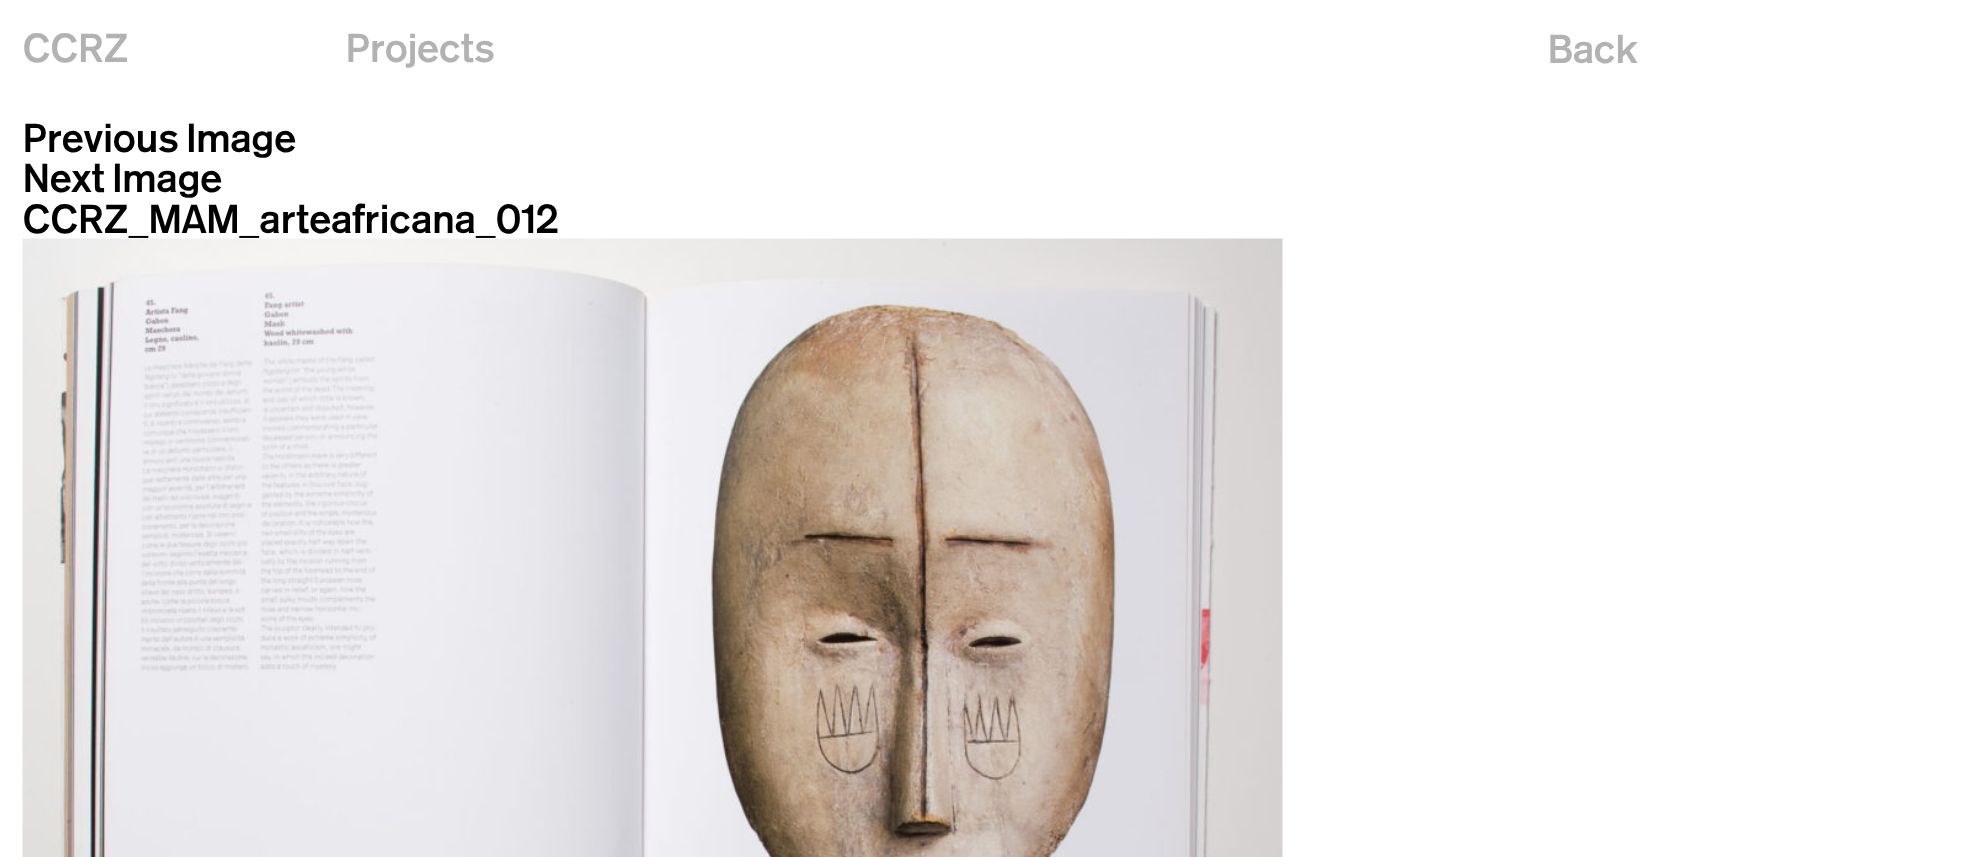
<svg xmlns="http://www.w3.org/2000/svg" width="1984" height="857">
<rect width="100%" height="100%" fill="#fff"/>
<text x="23" y="62" style="font-family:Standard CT;font-size:40.5px;font-weight:500;fill:#b2b2b2">CCRZ</text>
<text x="346" y="62" style="font-family:Standard CT;font-size:40.5px;font-weight:500;fill:#b2b2b2">Projects</text>
<text x="1548" y="63" style="font-family:Standard CT;font-size:40.5px;font-weight:500;fill:#b2b2b2">Back</text>
<text x="23" y="152" style="font-family:Standard CT;font-size:40.5px;font-weight:500;fill:#000">Previous Image</text>
<text x="23" y="192" style="font-family:Standard CT;font-size:40.5px;font-weight:500;fill:#000">Next Image</text>
<text x="23" y="233" style="font-family:Standard CT;font-size:40.5px;font-weight:500;fill:#000">CCRZ_MAM_arteafricana_012</text>
<image x="22" y="238" width="1261" height="619" href="media/1.png"/>
</svg>
